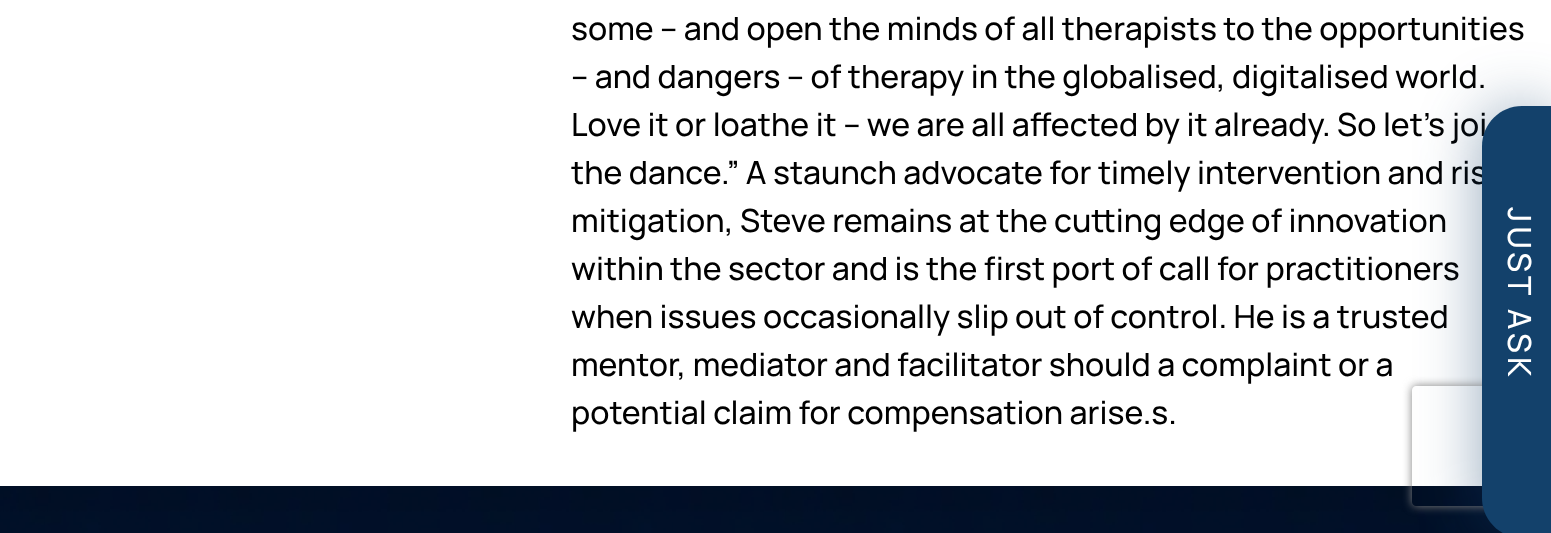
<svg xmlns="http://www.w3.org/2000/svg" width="1551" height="533">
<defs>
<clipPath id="clip1"><path d="M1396 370h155v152h-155zm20 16h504c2 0 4 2 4 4v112c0 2-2 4-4 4h-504c-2 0-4-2-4-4v-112c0-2 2-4 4-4z" clip-rule="evenodd"/></clipPath>
</defs>
<rect width="100%" height="100%" fill="#fff"/>
<text x="571" y="40" style="font-family:Manrope;font-size:32px;font-weight:500;fill:#000">some – and open the minds of all therapists to the opportunities</text>
<text x="571" y="88" style="font-family:Manrope;font-size:32px;font-weight:500;fill:#000">– and dangers – of therapy in the globalised, digitalised world.</text>
<text x="571" y="136" style="font-family:Manrope;font-size:32px;font-weight:500;fill:#000">Love it or loathe it – we are all affected by it already. So let’s joi</text>
<text x="571" y="184" style="font-family:Manrope;font-size:32px;font-weight:500;fill:#000">the dance.” A staunch advocate for timely intervention and ris</text>
<text x="571" y="232" style="font-family:Manrope;font-size:32px;font-weight:500;fill:#000">mitigation, Steve remains at the cutting edge of innovation</text>
<text x="571" y="280" style="font-family:Manrope;font-size:32px;font-weight:500;fill:#000">within the sector and is the first port of call for practitioners</text>
<text x="571" y="328" style="font-family:Manrope;font-size:32px;font-weight:500;fill:#000">when issues occasionally slip out of control. He is a trusted</text>
<text x="571" y="376" style="font-family:Manrope;font-size:32px;font-weight:500;fill:#000">mentor, mediator and facilitator should a complaint or a</text>
<text x="571" y="424" style="font-family:Manrope;font-size:32px;font-weight:500;fill:#000">potential claim for compensation arise.s.</text>
<image x="0" y="486" width="1503" height="47" href="media/1.png"/>
<rect x="1482" y="106" width="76" height="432" rx="40" fill="#13416b73" filter="blur(31px)"/>
<g clip-path="url(#clip1)">
<rect x="1412" y="386" width="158" height="120" rx="4" fill="#808080" filter="blur(5px)"/>
</g>
<path d="M1522 106h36v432h-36c-22 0-40-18-40-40v-352c0-22 18-40 40-40z" fill="#13416b"/>
<text x="1508" y="207" transform="rotate(90 1508 207)" style="font-family:Manrope;font-size:32px;font-weight:500;letter-spacing:4px;fill:#fff">JUST ASK</text>
</svg>
